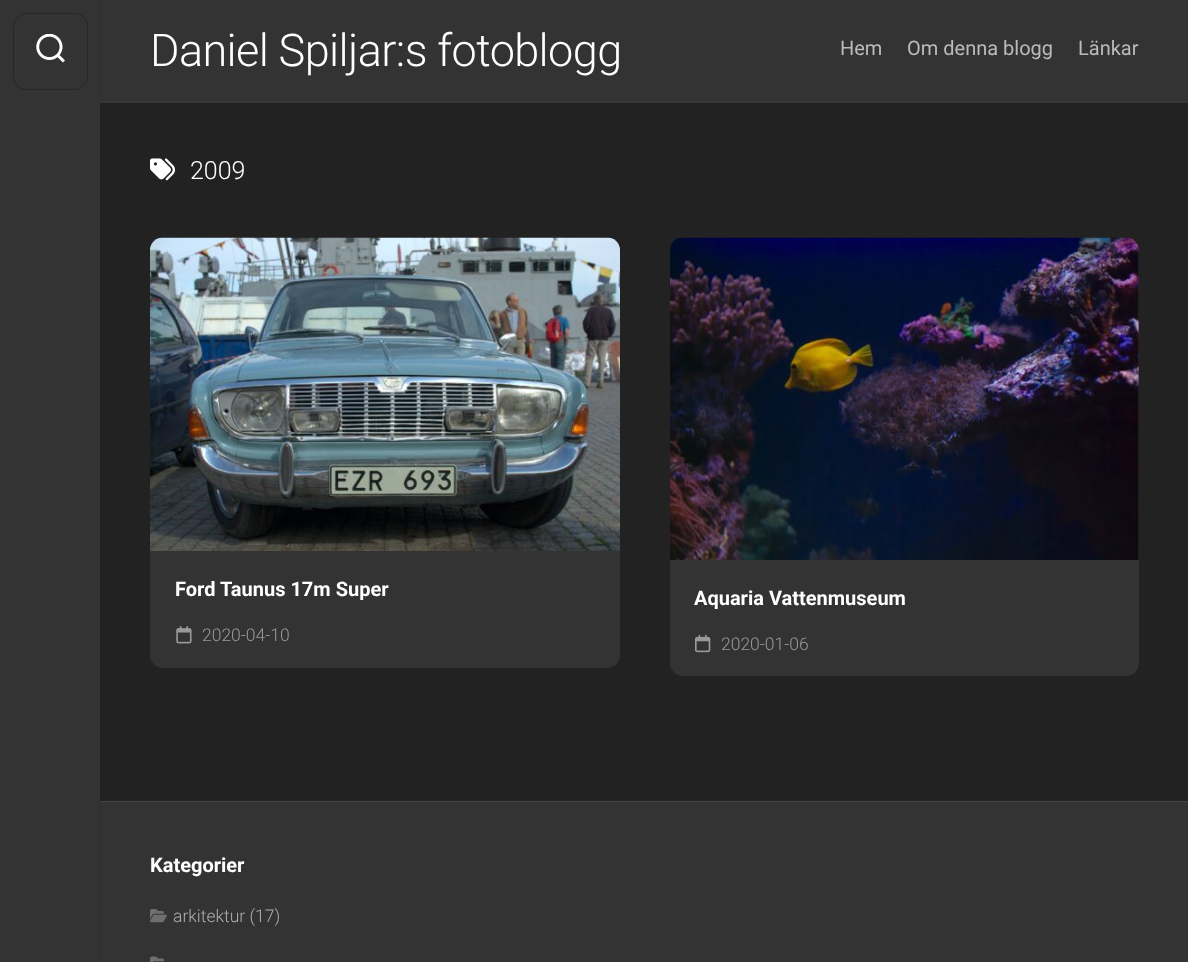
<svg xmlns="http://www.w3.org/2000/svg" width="1188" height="962">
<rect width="100%" height="100%" fill="#222"/>
<rect x="100" width="1088" height="103" fill="#333"/>
<rect x="100" y="101" width="1088" height="1" fill="#3a3a3a"/>
<rect x="100" y="802" width="1088" height="160" fill="#333"/>
<rect x="100" y="801" width="1088" height="1" fill="#444"/>
<path d="M1 962v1h100v-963h-1v962z" fill="#0000000d"/>
<rect width="100" height="962" fill="#333"/>
<rect x="13.5" y="13.5" width="74" height="76" rx="12.5" fill="none" stroke="#262626"/>
<image x="36" y="34" width="29" height="29" href="media/1.png"/>
<text x="150" y="66" style="font-family:Roboto;font-size:45px;font-weight:300;letter-spacing:-0.6px;fill:#fff">Daniel Spiljar:s fotoblogg</text>
<text x="840" y="55" style="font-family:Roboto;font-size:20px;fill:#bbb">Hem</text>
<text x="907" y="55" style="font-family:Roboto;font-size:20px;fill:#bbb">Om denna blogg</text>
<text x="1078" y="55" style="font-family:Roboto;font-size:20px;fill:#bbb">Länkar</text>
<image x="150" y="158" width="25" height="23" href="media/2.png"/>
<text x="190" y="179" style="font-family:Roboto;font-size:25px;font-weight:300;fill:#fff">2009</text>
<rect x="150" y="238" width="470" height="430" rx="13" fill="#333"/>
<image x="150" y="237" width="470" height="314" href="media/3.png"/>
<text x="175" y="596" style="font-family:Roboto;font-size:20px;font-weight:bold;fill:#fff">Ford Taunus 17m Super</text>
<image x="176" y="626" width="16" height="18" href="media/4.png"/>
<text x="202" y="641" style="font-family:Roboto;font-size:17.5px;font-weight:300;fill:#999">2020-04-10</text>
<rect x="670" y="238" width="469" height="438" rx="13" fill="#333"/>
<image x="670" y="237" width="469" height="323" href="media/5.png"/>
<text x="694" y="605" style="font-family:Roboto;font-size:20px;font-weight:bold;fill:#fff">Aquaria Vattenmuseum</text>
<image x="695" y="634" width="16" height="19" href="media/6.png"/>
<text x="721" y="650" style="font-family:Roboto;font-size:17.5px;font-weight:300;fill:#999">2020-01-06</text>
<text x="150" y="872" style="font-family:Roboto;font-size:20px;font-weight:bold;fill:#fff">Kategorier</text>
<image x="150" y="909" width="17" height="14" href="media/7.png"/>
<text x="173" y="922" style="font-family:Roboto;font-size:17.5px;font-weight:300;fill:#adadad">arkitektur (17)</text>
<image x="150" y="956" width="14" height="6" href="media/8.png"/>
</svg>
